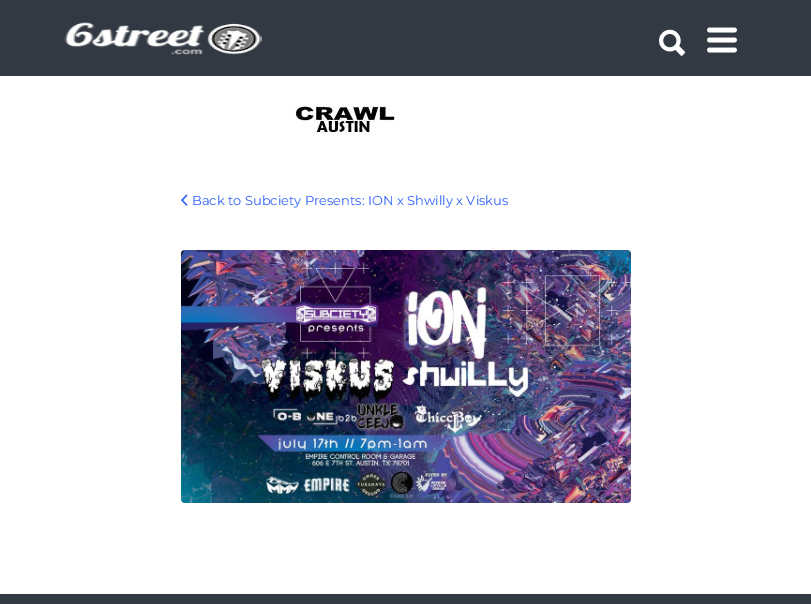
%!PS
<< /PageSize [811 604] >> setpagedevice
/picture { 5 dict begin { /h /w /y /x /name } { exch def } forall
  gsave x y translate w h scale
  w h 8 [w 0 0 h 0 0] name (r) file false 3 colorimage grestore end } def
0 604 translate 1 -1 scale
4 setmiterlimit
1 setgray
0 0 811 604 rectfill
0.2 0.224 0.263 setrgbcolor
0 0 811 76 rectfill
(img1.rgb) 63 22 199 33 picture
(img2.rgb) 659 29 27 27 picture
(img3.rgb) 707 27 30 26 picture
(img4.rgb) 295 106 100 30 picture
(img5.rgb) 181 194 7 12 picture
/Montserrat-Regular [13 0 0 -13 0 0] selectfont
0.188 0.38 1 setrgbcolor
192 205 moveto (Back to Subciety Presents: ION x Shwilly x Viskus) show
(img6.rgb) 181 250 450 253 picture
0.2 0.224 0.259 setrgbcolor
0 594 811 10 rectfill
showpage
